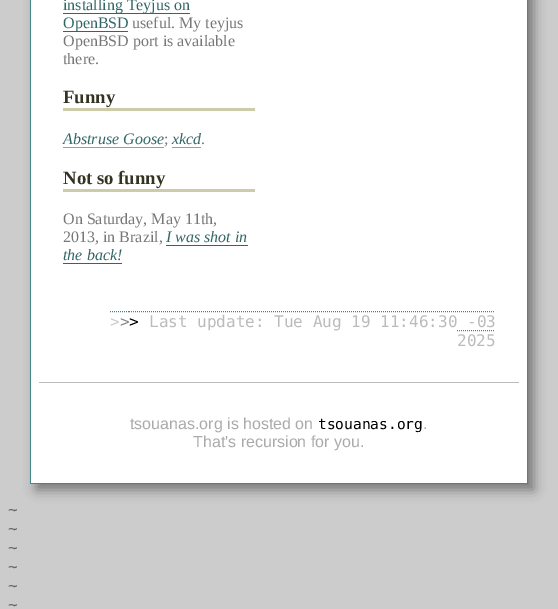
%!PS
<< /PageSize [558 609] /PageUsesTransparency true >> setpagedevice
/alpha { dup .setfillconstantalpha .setstrokeconstantalpha } def
/roundrect { 5 dict begin { /r /h /w /y /x } { exch def } forall
  x r add y moveto x w add y 2 copy h add r arct x w add y h add x 1 index r arct
  x y h add x y r arct x y 2 copy exch w add exch r arct closepath end } def
/shadow { 12 dict begin { /a /b /q /h /w /y /x } { exch def } forall gsave /was 0 def
  9 -2 -9 { dup b mul 4 div /e exch def 1 sub .425 mul 2.718 exch exp 1 add a .99 .min exch div /now exch def
    1 1 now sub 1 was sub div sub alpha /was now def
    w h .min e 2 mul add 0 gt { x e sub y e sub w e 2 mul add h e 2 mul add
      q e add b .6 mul add w h .min 2 div e add .min 0 .max roundrect fill } if } for grestore end } def
0 .pushpdf14devicefilter
0 609 translate 1 -1 scale
4 setmiterlimit
0.8 setgray
0 0 558 609 rectfill
0.467 setgray
36 -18 498 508 0 6 1 shadow
1 setgray
31 0 496 483 rectfill
0.267 0.533 0.533 setrgbcolor
527 0 1 484 rectfill
30 483 498 1 rectfill
30 0 1 484 rectfill
0.2 0.4 0.4 setrgbcolor
63 13 127 1 rectfill
/LiberationSerif-Regular [16 0 0 -16 0 0] selectfont
63 10 moveto (installing Teyjus on) show
63 31 65 1 rectfill
63 28 moveto (OpenBSD) show
0.467 setgray
132 28 moveto (useful. My teyjus) show
63 46 moveto (OpenBSD port is available) show
63 64 moveto (there.) show
0.8 0.8 0.667 setrgbcolor
63 108 192 3 rectfill
/LiberationSerif-Bold [18.75 0 0 -18.75 0 0] selectfont
0.2 0.2 0.133 setrgbcolor
63 103 moveto (Funny) show
/LiberationSerif-Italic [16 0 0 -16 0 0] selectfont
0.2 0.4 0.4 setrgbcolor
63 144 moveto (Abstruse Goose) show
1 0.533 0 setrgbcolor
63 147 101 1 rectfill
/LiberationSerif-Regular [16 0 0 -16 0 0] selectfont
0.467 setgray
164 144 moveto (;) show
/LiberationSerif-Italic [16 0 0 -16 0 0] selectfont
0.2 0.4 0.4 setrgbcolor
172 144 moveto (xkcd) show
1 0.533 0 setrgbcolor
172 147 29 1 rectfill
/LiberationSerif-Regular [16 0 0 -16 0 0] selectfont
0.467 setgray
201 144 moveto (.) show
0.8 0.8 0.667 setrgbcolor
63 189 192 3 rectfill
/LiberationSerif-Bold [18.75 0 0 -18.75 0 0] selectfont
0.2 0.2 0.133 setrgbcolor
63 184 moveto (Not so funny) show
/LiberationSerif-Regular [16 0 0 -16 0 0] selectfont
0.467 setgray
63 224 moveto (On Saturday, May 11th,) show
63 242 moveto (2013, in Brazil,) show
/LiberationSerif-Italic [16 0 0 -16 0 0] selectfont
0.2 0.4 0.4 setrgbcolor
166 242 moveto (I was shot in) show
166 245 82 1 rectfill
63 260 moveto (the back!) show
63 263 59 1 rectfill
/DejaVuSansMono-Regular [16 0 0 -16 0 0] selectfont
0.8 setgray
110 327 moveto (>) show
0.267 0.533 0.533 setrgbcolor
[1 1] 0 setdash
newpath 110 311.5 moveto 120 311.5 lineto 120 311.5 moveto 129 311.5 lineto 129 311.5 moveto 139 311.5 lineto stroke
0.533 setgray
120 327 moveto (>) show
0 setgray
129 327 moveto (>) show
0.267 0.533 0.533 setrgbcolor
newpath 139 311.5 moveto 495 311.5 lineto stroke
newpath 457 330.5 moveto 495 330.5 lineto stroke
0.733 setgray
149 327 moveto (Last update: Tue Aug 19 11:46:30 -03) show
457 346 moveto (2025) show
39 382 480 1 rectfill
/LiberationSans-Regular [16 0 0 -16 0 0] selectfont
0.667 setgray
130 429 moveto (tsouanas.org is hosted on) show
/DejaVuSansMono-Regular [14.5 0 0 -14.5 0 0] selectfont
0 setgray
318 429 moveto (tsouanas.org) show
/LiberationSans-Regular [16 0 0 -16 0 0] selectfont
0.667 setgray
423 429 moveto (.) show
193 447 moveto (That's recursion for you.) show
/DejaVuSansMono-Regular [16 0 0 -16 0 0] selectfont
0.4 setgray
8 515 moveto (~) show
8 534 moveto (~) show
8 553 moveto (~) show
8 572 moveto (~) show
8 591 moveto (~) show
8 610 moveto (~) show
.poppdf14devicefilter showpage
